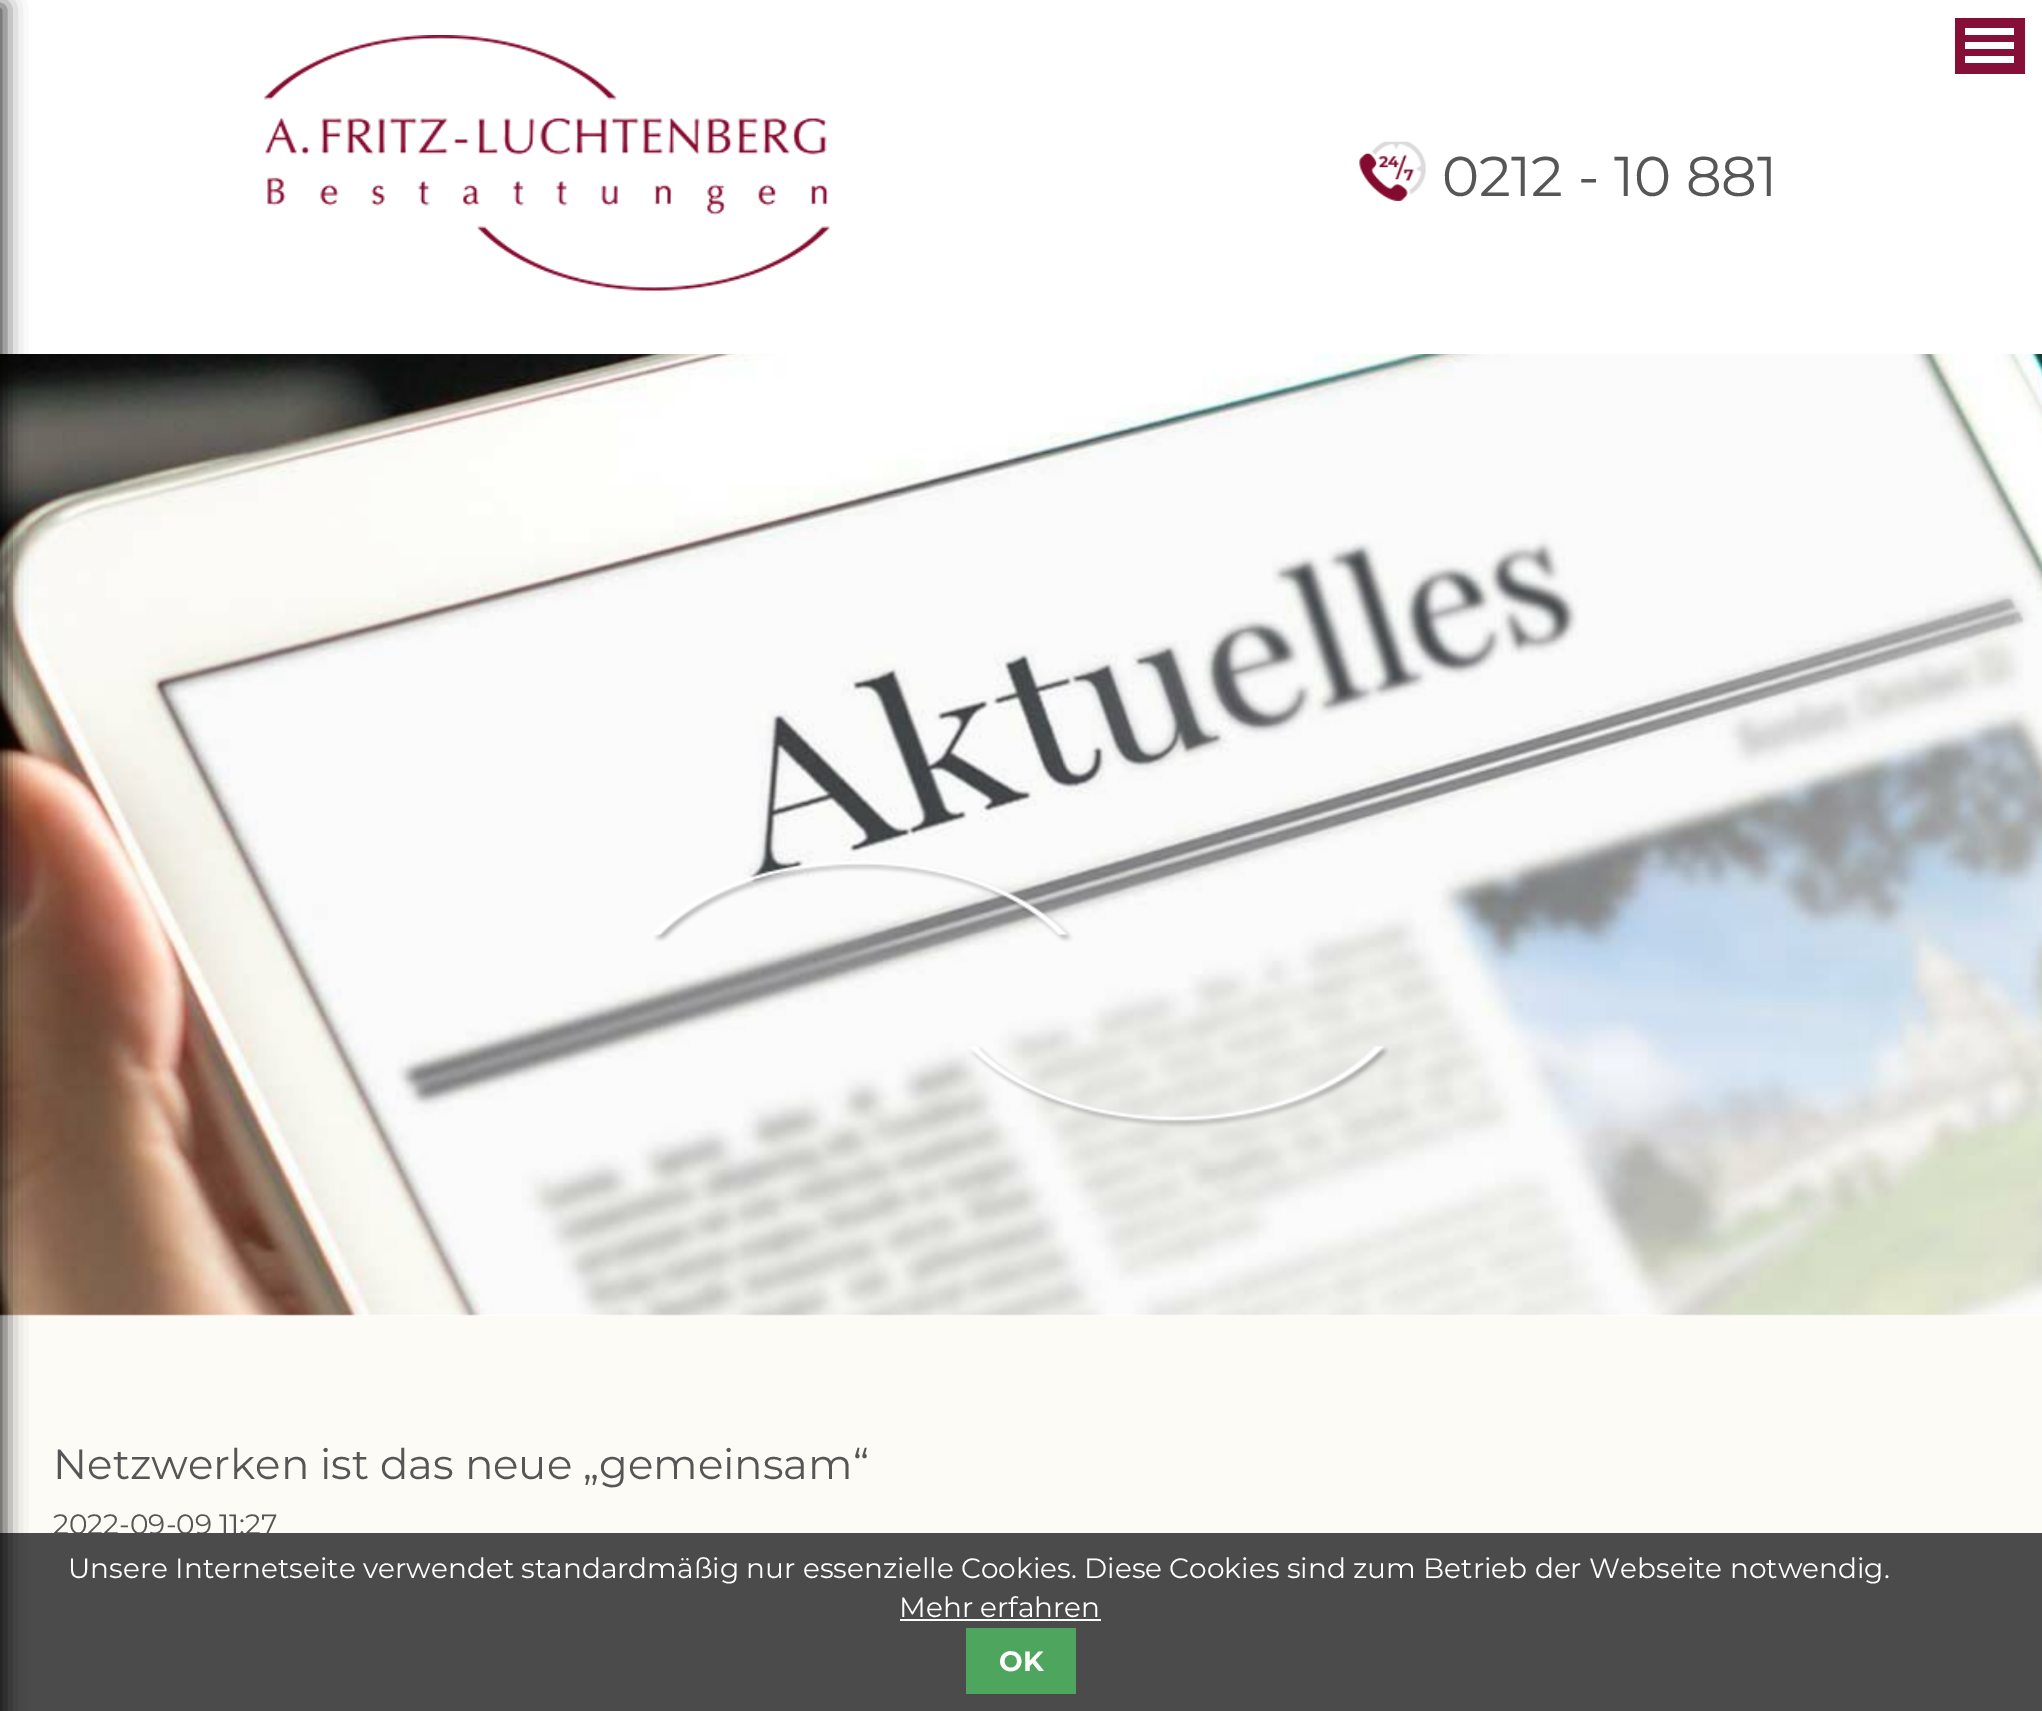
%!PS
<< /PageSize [2042 1711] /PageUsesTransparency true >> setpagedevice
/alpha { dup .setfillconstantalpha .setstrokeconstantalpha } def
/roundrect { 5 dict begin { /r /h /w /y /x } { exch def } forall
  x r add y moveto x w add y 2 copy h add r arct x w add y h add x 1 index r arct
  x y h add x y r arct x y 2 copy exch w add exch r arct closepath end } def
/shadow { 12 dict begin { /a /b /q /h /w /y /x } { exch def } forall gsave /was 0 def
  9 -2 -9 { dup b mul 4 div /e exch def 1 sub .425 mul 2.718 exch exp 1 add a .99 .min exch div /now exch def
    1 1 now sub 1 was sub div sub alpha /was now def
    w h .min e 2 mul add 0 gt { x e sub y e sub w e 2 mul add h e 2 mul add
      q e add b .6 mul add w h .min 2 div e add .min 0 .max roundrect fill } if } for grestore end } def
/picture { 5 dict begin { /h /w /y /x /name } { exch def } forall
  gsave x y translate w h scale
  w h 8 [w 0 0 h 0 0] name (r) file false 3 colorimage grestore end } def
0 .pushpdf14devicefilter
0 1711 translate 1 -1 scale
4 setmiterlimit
0.992 0.984 0.961 setrgbcolor
0 0 2042 1711 rectfill
1 setgray
0 1314 2042 2 rectfill
0 0 2042 354 rectfill
(img4.rgb) 0 354 2042 962 picture
/Montserrat-Regular [28 0 0 -28 0 0] selectfont
0.337 setgray
53 1534 moveto (2022-09-09 11:27) show
0.294 setgray
0 1533 2042 178 rectfill
0 setgray
-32 5 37 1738 0 10.5 0.75 shadow
0.525 0.059 0.216 setrgbcolor
1955 18 70 56 rectfill
1 setgray
1965 42 49 7 rectfill
1965 28 49 7 rectfill
1965 56 49 7 rectfill
(img1.rgb) 264 35 566 256 picture
(img2.rgb) 1359 141 67 60 picture
/Montserrat-Regular [56 0 0 -56 0 0] selectfont
0.337 setgray
1442 196 moveto (0212 - 10 881) show
(img3.rgb) 653 861 736 266 picture
/Montserrat-Regular [42 0 0 -42 0 0] selectfont
53 1479 moveto (Netzwerken ist das neue „gemeinsam“) show
/Montserrat-Regular [28 0 0 -28 0 0] selectfont
1 setgray
68 1578 moveto (Unsere Internetseite verwendet standardmäßig nur essenzielle Cookies. Diese Cookies sind zum Betrieb der Webseite notwendig.) show
899 1617 moveto (Mehr erfahren) show
900 1619 201 2 rectfill
0.306 0.647 0.369 setrgbcolor
966 1628 110 66 rectfill
/Montserrat-Bold [28 0 0 -28 0 0] selectfont
1 setgray
999 1671 moveto (OK) show
.poppdf14devicefilter showpage
